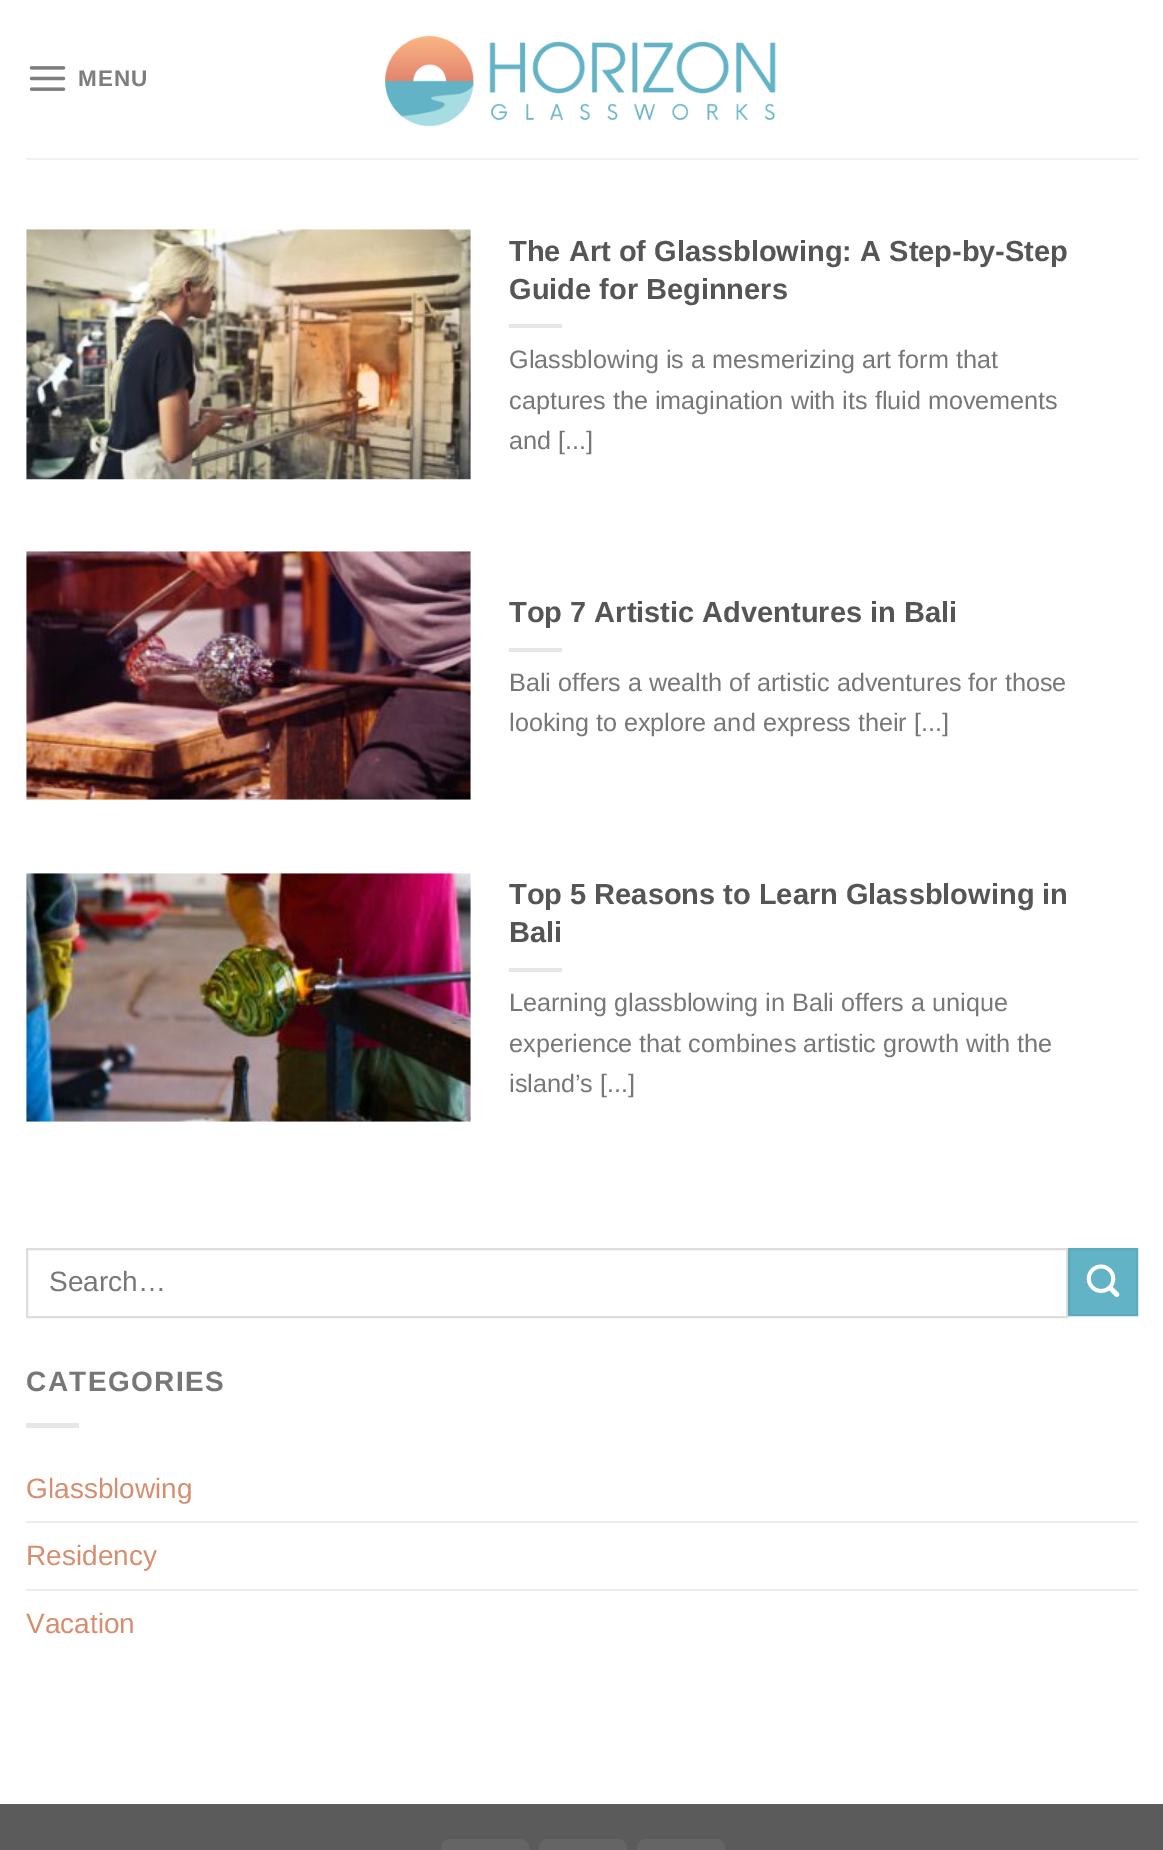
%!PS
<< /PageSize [1163 1850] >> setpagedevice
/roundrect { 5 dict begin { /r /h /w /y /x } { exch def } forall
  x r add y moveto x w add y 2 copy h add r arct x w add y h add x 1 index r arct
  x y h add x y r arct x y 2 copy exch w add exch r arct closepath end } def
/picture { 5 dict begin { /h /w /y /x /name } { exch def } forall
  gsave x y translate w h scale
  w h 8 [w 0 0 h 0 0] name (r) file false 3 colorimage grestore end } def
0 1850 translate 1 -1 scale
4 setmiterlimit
1 setgray
0 0 1163 1850 rectfill
(img1.rgb) 29 66 37 25 picture
/LiberationSans-Bold [22.5 0 0 -22.5 0 0] selectfont
0.49 setgray
78 86 moveto 1 0 (MENU) ashow
(img2.rgb) 385 36 391 91 picture
0.945 setgray
26 158 1112 2 rectfill
(img3.rgb) 26 229 445 251 picture
/LiberationSans-Bold [29 0 0 -29 0 0] selectfont
0.333 setgray
509 261 moveto (The Art of Glassblowing: A Step-by-Step) show
509 299 moveto (Guide for Beginners) show
0.902 setgray
509 324 53 4 rectfill
/LiberationSans-Regular [25.2 0 0 -25.2 0 0] selectfont
0.467 setgray
509 368 moveto (Glassblowing is a mesmerizing art form that) show
509 409 moveto (captures the imagination with its fluid movements) show
509 449 moveto (and [...]) show
(img4.rgb) 26 551 445 249 picture
/LiberationSans-Bold [29 0 0 -29 0 0] selectfont
0.333 setgray
509 622 moveto (Top 7 Artistic Adventures in Bali) show
0.902 setgray
509 648 53 4 rectfill
/LiberationSans-Regular [25.2 0 0 -25.2 0 0] selectfont
0.467 setgray
509 691 moveto (Bali offers a wealth of artistic adventures for those) show
509 731 moveto (looking to explore and express their [...]) show
(img5.rgb) 26 873 445 249 picture
/LiberationSans-Bold [29 0 0 -29 0 0] selectfont
0.333 setgray
509 904 moveto (Top 5 Reasons to Learn Glassblowing in) show
509 942 moveto (Bali) show
0.902 setgray
509 968 53 4 rectfill
/LiberationSans-Regular [25.2 0 0 -25.2 0 0] selectfont
0.467 setgray
509 1011 moveto (Learning glassblowing in Bali offers a unique) show
509 1052 moveto (experience that combines artistic growth with the) show
509 1092 moveto (island’s [...]) show
0.867 setgray
2 setlinewidth
27 1249 1040 68 rectstroke
/LiberationSans-Regular [28 0 0 -28 0 0] selectfont
0.467 setgray
49 1291 moveto (Search…) show
0.384 0.702 0.773 setrgbcolor
newpath 1069 1249 moveto 1137 1249 lineto 1137 1315 lineto 1069 1315 lineto closepath gsave fill grestore
0.365 0.667 0.733 setrgbcolor
stroke
(img6.rgb) 1086 1264 34 33 picture
/LiberationSans-Bold [28 0 0 -28 0 0] selectfont
0.467 setgray
26 1391 moveto 1.4 0 (CATEGORIES) ashow
0.902 setgray
26 1423 53 5 rectfill
/LiberationSans-Regular [28 0 0 -28 0 0] selectfont
0.843 0.557 0.431 setrgbcolor
26 1498 moveto (Glassblowing) show
0.925 setgray
26 1521 1112 2 rectfill
0.843 0.557 0.431 setrgbcolor
26 1565 moveto (Residency) show
0.925 setgray
26 1589 1112 2 rectfill
0.843 0.557 0.431 setrgbcolor
26 1633 moveto (Vacation) show
0.357 setgray
0 1804 1163 46 rectfill
0.396 setgray
441 1839 88 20 9 roundrect fill
539 1839 88 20 9 roundrect fill
637 1839 88 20 9 roundrect fill
showpage
